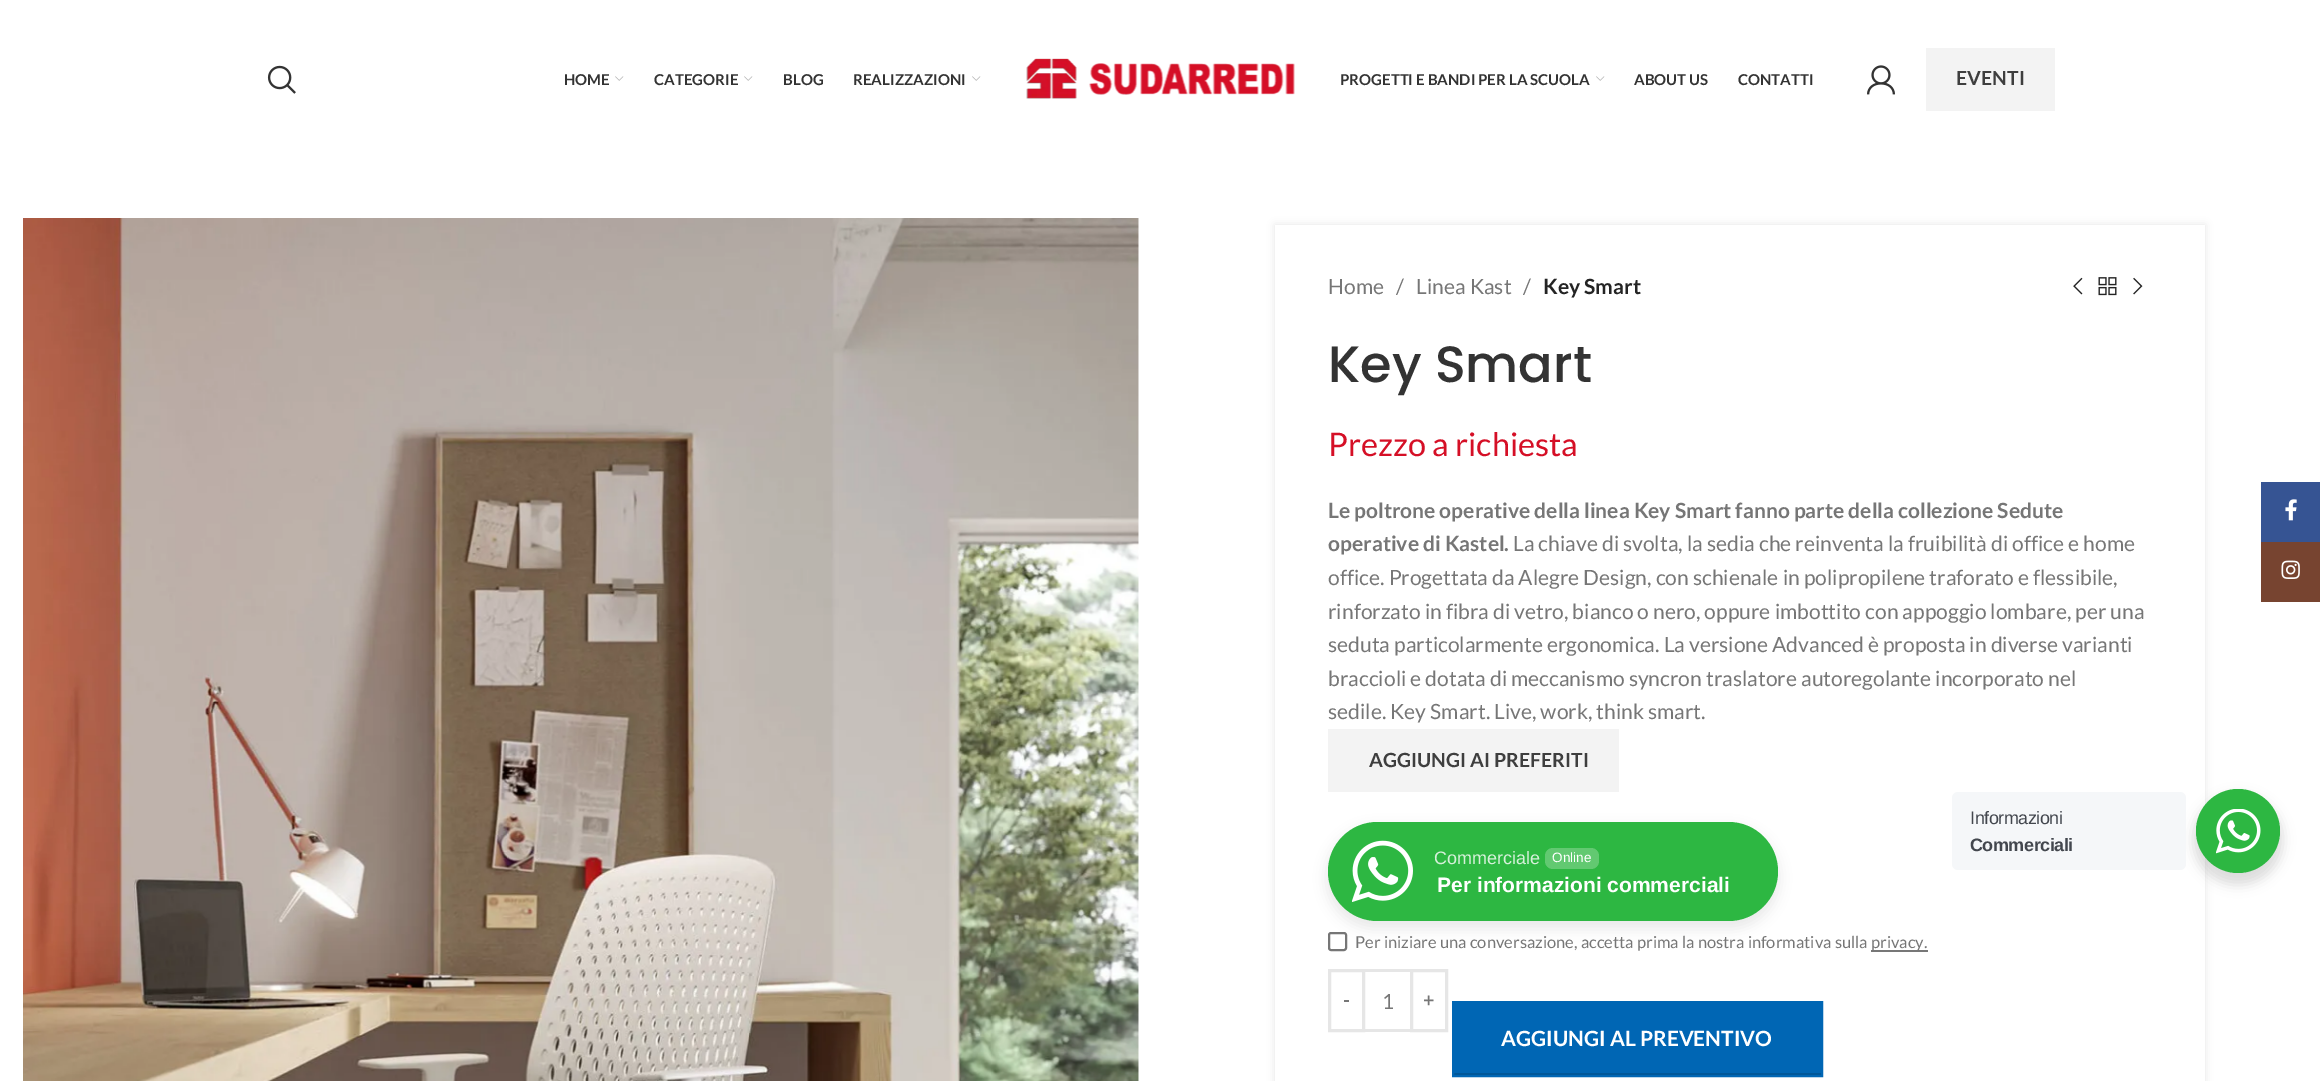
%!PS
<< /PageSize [2320 1081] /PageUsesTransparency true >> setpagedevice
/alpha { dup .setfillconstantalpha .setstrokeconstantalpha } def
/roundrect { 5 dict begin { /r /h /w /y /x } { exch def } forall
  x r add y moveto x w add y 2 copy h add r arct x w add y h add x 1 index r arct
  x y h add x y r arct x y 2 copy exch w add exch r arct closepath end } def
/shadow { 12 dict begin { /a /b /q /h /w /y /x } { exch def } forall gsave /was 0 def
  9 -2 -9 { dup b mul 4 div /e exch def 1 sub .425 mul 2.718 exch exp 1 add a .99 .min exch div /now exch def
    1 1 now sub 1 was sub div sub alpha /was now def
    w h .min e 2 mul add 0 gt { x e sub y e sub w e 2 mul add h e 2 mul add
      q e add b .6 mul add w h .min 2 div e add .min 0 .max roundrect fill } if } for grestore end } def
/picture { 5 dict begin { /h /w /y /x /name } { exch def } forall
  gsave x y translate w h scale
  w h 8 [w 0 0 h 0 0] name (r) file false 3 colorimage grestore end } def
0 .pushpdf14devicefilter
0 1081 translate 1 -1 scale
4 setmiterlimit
1 setgray
0 0 2320 1081 rectfill
(img1.rgb) 267 65 29 29 picture
/Lato-Bold [15 0 0 -15 0 0] selectfont
0.2 setgray
564 85 moveto (HOME) show
(img2.rgb) 615 76 9 5 picture
654 85 moveto (CATEGORIE) show
(img2.rgb) 744 76 9 5 picture
783 85 moveto (BLOG) show
853 85 moveto (REALIZZAZIONI) show
(img2.rgb) 972 76 9 5 picture
(img3.rgb) 1026 58 269 41 picture
1340 85 moveto (PROGETTI E BANDI PER LA SCUOLA) show
(img2.rgb) 1596 76 9 5 picture
1634 85 moveto (ABOUT US) show
1738 85 moveto (CONTATTI) show
(img4.rgb) 1867 65 28 30 picture
0.953 setgray
1926 48 129 63 rectfill
/Lato-Bold [19.5 0 0 -19.5 0 0] selectfont
0.243 setgray
1956 85 moveto (EVENTI) show
(img5.rgb) 23 218 1116 863 picture
gsave
newpath 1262 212 moveto 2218 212 lineto 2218 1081 lineto 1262 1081 lineto closepath 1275 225 moveto 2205 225 lineto 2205 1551 lineto 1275 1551 lineto closepath eoclip newpath
0 setgray
1275 225 930 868 0 4 0.1 shadow
grestore
/Lato-Regular [21 0 0 -21 0 0] selectfont
0.463 setgray
1328 294 moveto (Home) show
1396 294 moveto (/) show
1416 294 moveto (Linea Kast) show
1523 294 moveto (/) show
/Lato-Bold [21 0 0 -21 0 0] selectfont
0.141 setgray
1543 294 moveto (Key Smart) show
(img6.rgb) 2073 277 10 18 picture
(img7.rgb) 2098 277 19 19 picture
(img8.rgb) 2133 277 10 18 picture
/Poppins-Medium [51 0 0 -51 0 0] selectfont
0.2 setgray
1328 382 moveto (Key Smart) show
/Lato-Regular [32.5 0 0 -32.5 0 0] selectfont
0.835 0.059 0.149 setrgbcolor
1328 456 moveto (Prezzo a richiesta) show
/Lato-Bold [21 0 0 -21 0 0] selectfont
0.463 setgray
1328 518 moveto (Le poltrone operative della linea Key Smart fanno parte della collezione Sedute) show
1328 551 moveto (operative di Kastel.) show
/Lato-Regular [21 0 0 -21 0 0] selectfont
1513 551 moveto (La chiave di svolta, la sedia che reinventa la fruibilità di office e home) show
1328 585 moveto (office. Progettata da Alegre Design, con schienale in polipropilene traforato e flessibile,) show
1328 619 moveto (rinforzato in fibra di vetro, bianco o nero, oppure imbottito con appoggio lombare, per una) show
1328 652 moveto (seduta particolarmente ergonomica. La versione Advanced è proposta in diverse varianti) show
1328 686 moveto (braccioli e dotata di meccanismo syncron traslatore autoregolante incorporato nel) show
1328 719 moveto (sedile. Key Smart. Live, work, think smart.) show
0.953 setgray
1328 729 291 63 rectfill
/Lato-Bold [19.5 0 0 -19.5 0 0] selectfont
0.243 setgray
1369 767 moveto (AGGIUNGI AI PREFERITI) show
0.463 setgray
2 setlinewidth
1329 933 17 17 2 roundrect stroke
0.125 0.125 0.145 setrgbcolor
1326 827 453 102 51 6 0.09 shadow
0.176 0.718 0.259 setrgbcolor
1328 822 450 99 49.5 roundrect fill
(img9.rgb) 1352 840 61 62 picture
/LiberationSans-Regular [18 0 0 -18 0 0] selectfont
0.835 0.941 0.851 setrgbcolor
1434 864 moveto (Commerciale) show
0.384 0.788 0.443 setrgbcolor
1545 848 54 21 8 roundrect fill
/LiberationSans-Regular [13.5 0 0 -13.5 0 0] selectfont
1 setgray
1552 862 moveto (Online) show
/LiberationSans-Bold [21 0 0 -21 0 0] selectfont
1437 892 moveto (Per informazioni commerciali) show
/Lato-Regular [16.5 0 0 -16.5 0 0] selectfont
0.463 setgray
1355 948 moveto (Per iniziare una conversazione, accetta prima la nostra informativa sulla) show
0.467 setgray
1871 950 57 2 rectfill
0.463 setgray
1871 948 moveto (privacy.) show
0.902 setgray
3 setlinewidth
1329.5 970.5 34 60 rectstroke
/Lato-Bold [19.5 0 0 -19.5 0 0] selectfont
0.463 setgray
1343 1007 moveto (-) show
0.902 setgray
1365 969 45 3 rectfill
1365 1029 45 3 rectfill
/Lato-Regular [21 0 0 -21 0 0] selectfont
0.463 setgray
1382 1009 moveto (1) show
0.902 setgray
1411.5 970.5 35 60 rectstroke
/Lato-Bold [19.5 0 0 -19.5 0 0] selectfont
0.463 setgray
1423 1007 moveto (+) show
0 0.4 0.706 setrgbcolor
1454 1003 367 70 rectfill
0 0.341 0.6 setrgbcolor
1454 1073 367 2 rectfill
0 0.4 0.706 setrgbcolor
2 setlinewidth
1453 1002 369 74 rectstroke
/Lato-Bold [21 0 0 -21 0 0] selectfont
1 setgray
1501 1046 moveto (AGGIUNGI AL PREVENTIVO) show
0.212 0.329 0.576 setrgbcolor
2261 482 59 60 rectfill
(img10.rgb) 2285 499 12 22 picture
0.467 0.267 0.188 setrgbcolor
2261 542 59 60 rectfill
(img11.rgb) 2281 560 19 19 picture
0 setgray
2193 795 90 90 45 6 0.14 shadow
0.961 0.969 0.976 setrgbcolor
1952 792 234 78 6 roundrect fill
/LiberationSans-Regular [18 0 0 -18 0 0] selectfont
0.263 0.278 0.306 setrgbcolor
1970 824 moveto -0.5 0 (Informazioni) ashow
/LiberationSans-Bold [18 0 0 -18 0 0] selectfont
1970 851 moveto -0.5 0 (Commerciali) ashow
0.176 0.718 0.259 setrgbcolor
newpath 2238 831 42 0 360 arc closepath fill
(img12.rgb) 2216 809 45 45 picture
.poppdf14devicefilter showpage
